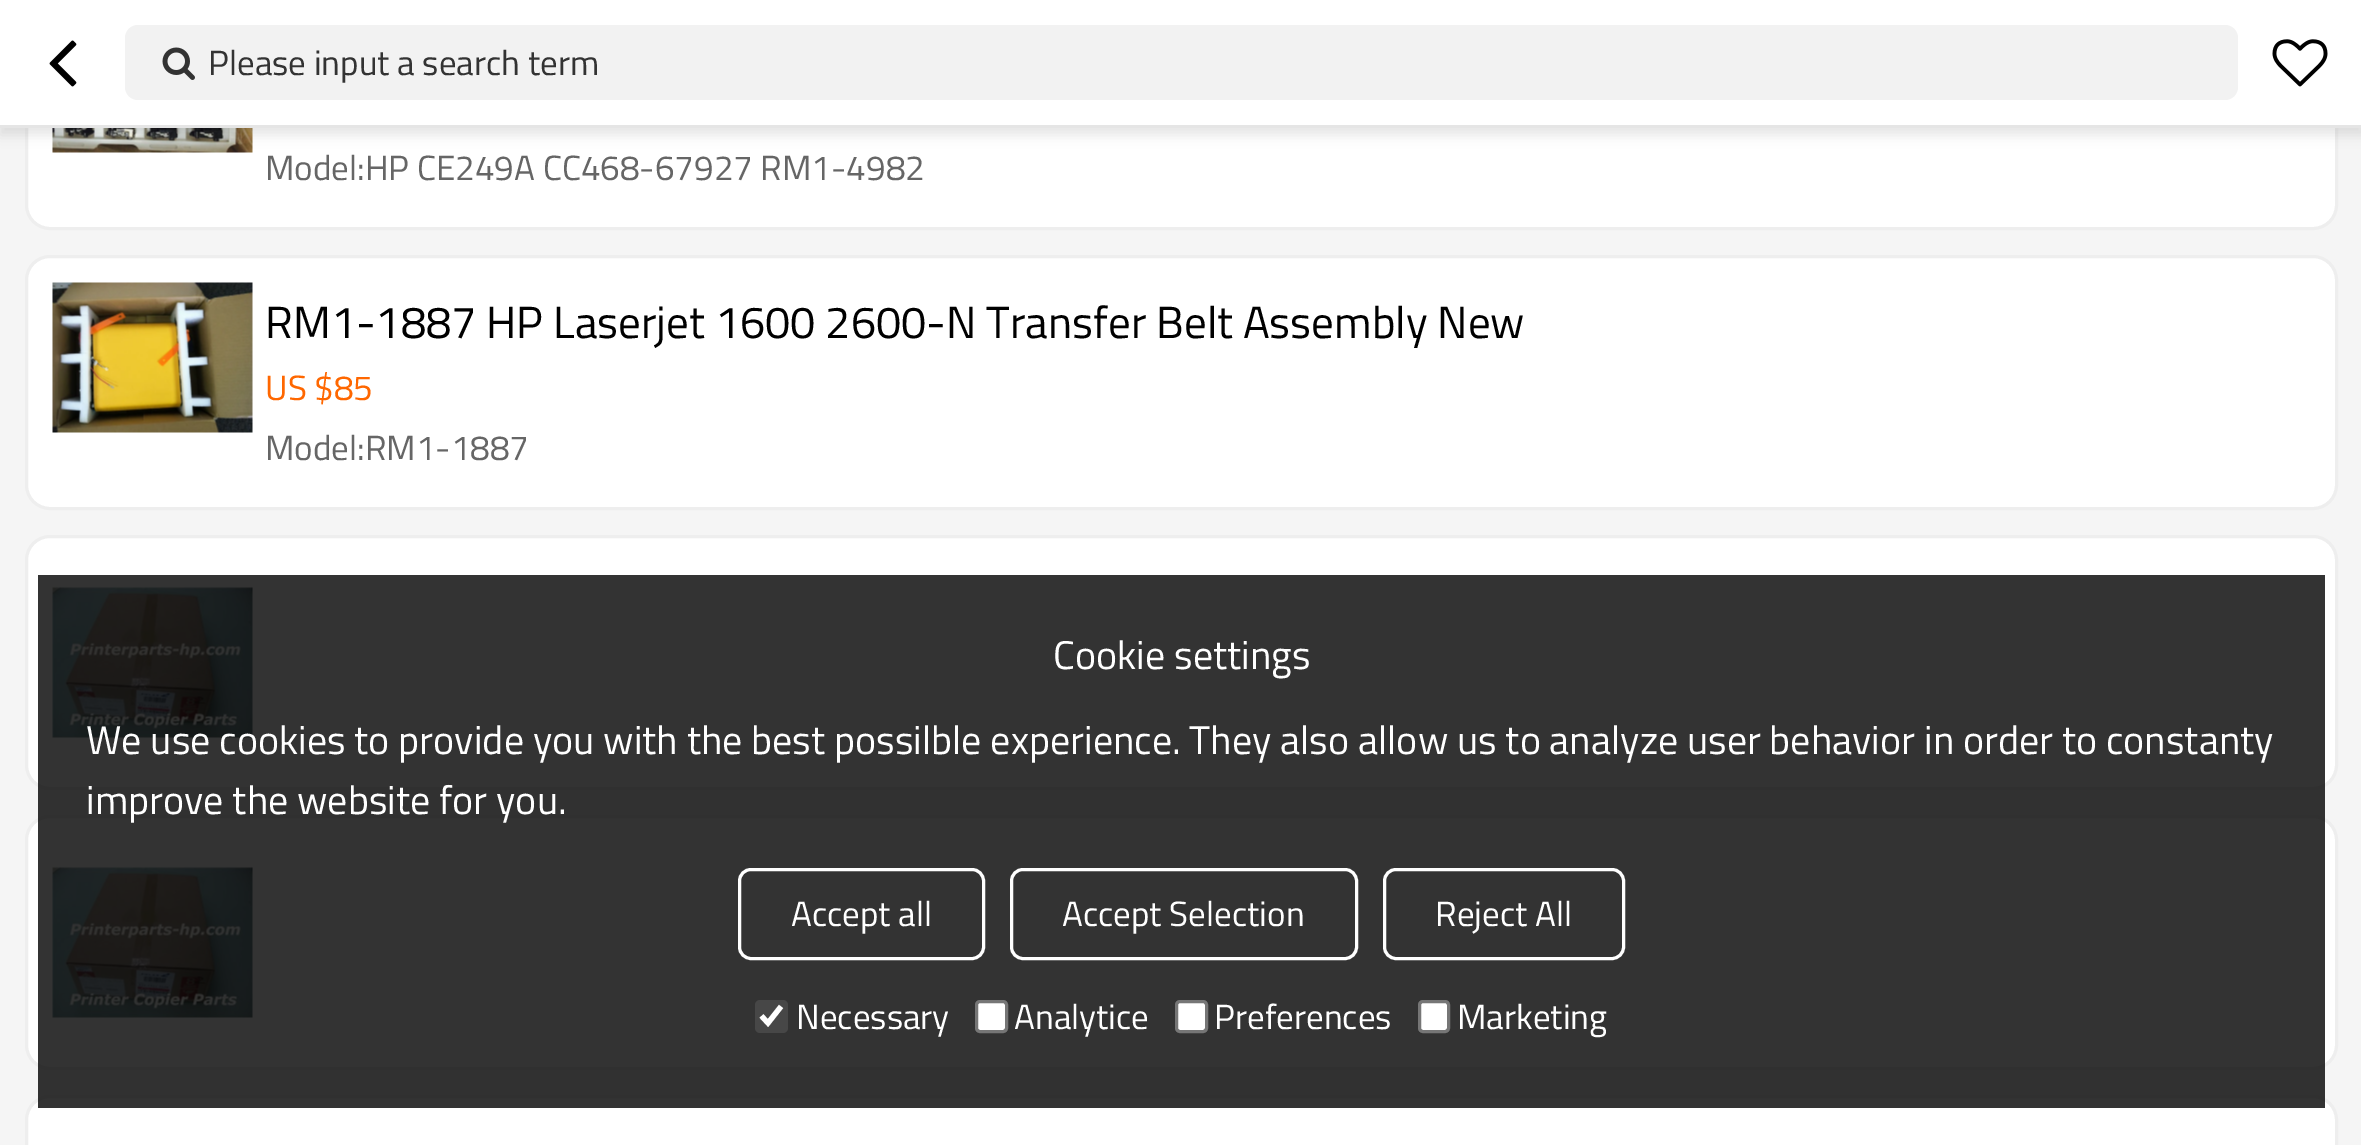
%!PS
<< /PageSize [2361 1145] /PageUsesTransparency true >> setpagedevice
/alpha { dup .setfillconstantalpha .setstrokeconstantalpha } def
/roundrect { 5 dict begin { /r /h /w /y /x } { exch def } forall
  x r add y moveto x w add y 2 copy h add r arct x w add y h add x 1 index r arct
  x y h add x y r arct x y 2 copy exch w add exch r arct closepath end } def
/shadow { 12 dict begin { /a /b /q /h /w /y /x } { exch def } forall gsave /was 0 def
  9 -2 -9 { dup b mul 4 div /e exch def 1 sub .425 mul 2.718 exch exp 1 add a .99 .min exch div /now exch def
    1 1 now sub 1 was sub div sub alpha /was now def
    w h .min e 2 mul add 0 gt { x e sub y e sub w e 2 mul add h e 2 mul add
      q e add b .6 mul add w h .min 2 div e add .min 0 .max roundrect fill } if } for grestore end } def
/picture { 5 dict begin { /h /w /y /x /name } { exch def } forall
  gsave x y translate w h scale
  w h 8 [w 0 0 h 0 0] name (r) file false 3 colorimage grestore end } def
0 .pushpdf14devicefilter
0 1145 translate 1 -1 scale
4 setmiterlimit
0.961 setgray
0 0 2361 1145 rectfill
1 setgray
26.5 -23.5 2310 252 23.5 roundrect gsave fill grestore
0.933 setgray
3 setlinewidth
stroke
(img4.rgb) 52 128 201 25 picture
0 setgray
0 8 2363 127 0 6 0.1 shadow
1 setgray
0 0 2361 125 rectfill
0.898 setgray
0 125 2361 3 rectfill
(img1.rgb) 49 40 28 47 picture
0.949 setgray
125 25 2113 75 13 roundrect fill
(img2.rgb) 162 47 33 33 picture
/TitilliumWeb-Regular [35 0 0 -35 0 0] selectfont
0.2 setgray
208 75 moveto (Please input a search term) show
(img3.rgb) 2272 39 56 48 picture
0.4 setgray
265 180 moveto (Model:HP CE249A CC468-67927 RM1-4982) show
1 setgray
26.5 256.5 2310 252 23.5 roundrect gsave fill grestore
0.933 setgray
stroke
(img5.rgb) 52 282 201 151 picture
/TitilliumWeb-Regular [45 0 0 -45 0 0] selectfont
0 setgray
265 338 moveto (RM1-1887 HP Laserjet 1600 2600-N Transfer Belt Assembly New) show
/TitilliumWeb-Regular [35 0 0 -35 0 0] selectfont
1 0.404 0 setrgbcolor
265 400 moveto (US $85) show
0.4 setgray
265 460 moveto (Model:RM1-1887) show
1 setgray
26.5 536.5 2310 252 23.5 roundrect gsave fill grestore
0.933 setgray
stroke
(img6.rgb) 52 586 201 153 picture
1 setgray
26.5 816.5 2310 252 23.5 roundrect gsave fill grestore
0.933 setgray
stroke
(img6.rgb) 52 866 201 153 picture
1 setgray
26.5 1096.5 2310 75 23.5 roundrect gsave fill grestore
0.933 setgray
stroke
0.8 alpha
0 setgray
38 575 2287 533 rectfill
/TitilliumWeb-Regular [40 0 0 -40 0 0] selectfont
1 alpha
1 setgray
1053 669 moveto (Cookie settings) show
86 754 moveto (We use cookies to provide you with the best possilble experience. They also allow us to analyze user behavior in order to constanty) show
86 814 moveto (improve the website for you.) show
739.5 869.5 244 89 11.5 roundrect stroke
/TitilliumWeb-Regular [35 0 0 -35 0 0] selectfont
791 926 moveto (Accept all) show
1011.5 869.5 345 89 11.5 roundrect stroke
1062 926 moveto (Accept Selection) show
1384.5 869.5 239 89 11.5 roundrect stroke
1435 926 moveto (Reject All) show
0.278 setgray
755 1000 33 33 5 roundrect fill
1 setgray
5.2 setlinewidth
newpath 761.5 1016 moveto 768 1023 lineto 781 1006.5 lineto stroke
796 1029 moveto (Necessary) show
976.5 1001.5 30 30 3.5 roundrect gsave fill grestore
0.463 setgray
3 setlinewidth
stroke
1 setgray
1014 1029 moveto (Analytice) show
1176.5 1001.5 30 30 3.5 roundrect gsave fill grestore
0.463 setgray
stroke
1 setgray
1214 1029 moveto (Preferences) show
1419.5 1001.5 29 30 3.5 roundrect gsave fill grestore
0.463 setgray
stroke
1 setgray
1457 1029 moveto (Marketing) show
.poppdf14devicefilter showpage
